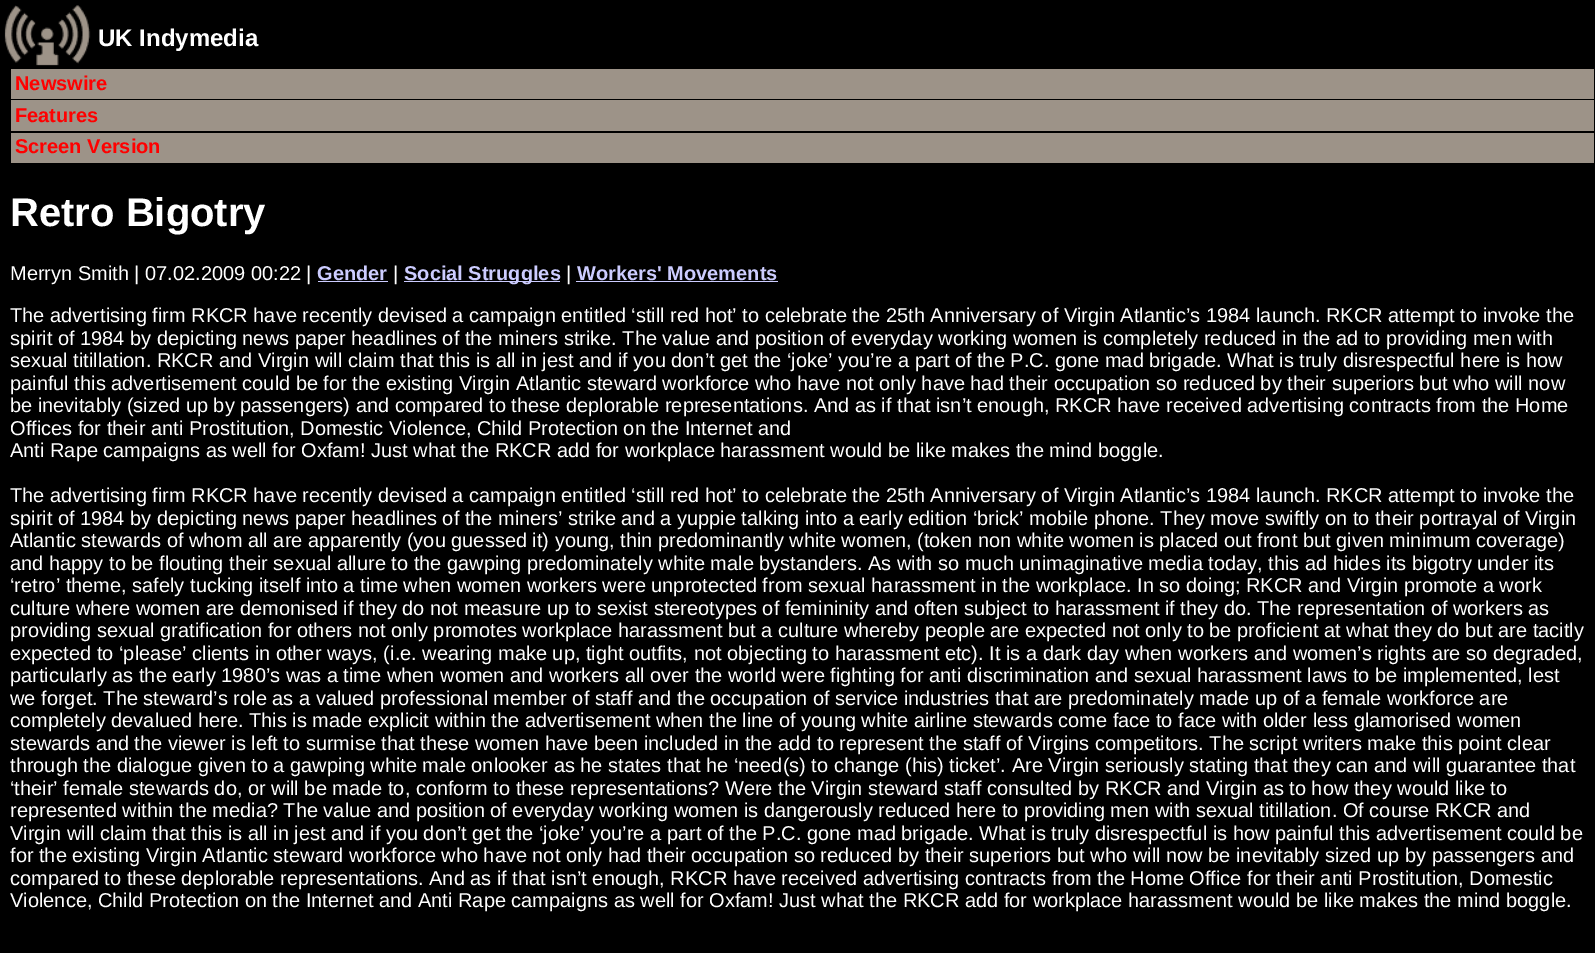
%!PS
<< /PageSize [1595 953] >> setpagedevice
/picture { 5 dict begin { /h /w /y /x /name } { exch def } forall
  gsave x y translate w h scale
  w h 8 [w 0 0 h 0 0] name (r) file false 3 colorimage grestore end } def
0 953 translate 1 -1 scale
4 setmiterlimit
0 setgray
0 0 1595 953 rectfill
(img1.rgb) 4 5 87 61 picture
/LiberationSans-Bold [24 0 0 -24 0 0] selectfont
1 setgray
98 46 moveto (UK Indymedia) show
0.616 0.576 0.533 setrgbcolor
11 69 1583 30 rectfill
/LiberationSans-Bold [20 0 0 -20 0 0] selectfont
1 0 0 setrgbcolor
15 90 moveto (Newswire) show
0.616 0.576 0.533 setrgbcolor
11 100 1583 31 rectfill
1 0 0 setrgbcolor
15 122 moveto (Features) show
0.616 0.576 0.533 setrgbcolor
11 133 1583 30 rectfill
1 0 0 setrgbcolor
15 153 moveto (Screen Version) show
/LiberationSans-Bold [40 0 0 -40 0 0] selectfont
1 setgray
10 226 moveto (Retro Bigotry) show
/LiberationSans-Regular [20 0 0 -20 0 0] selectfont
10 280 moveto (Merryn Smith | 07.02.2009 00:22 |) show
/LiberationSans-Bold [20 0 0 -20 0 0] selectfont
0.8 0.8 1 setrgbcolor
317 280 moveto (Gender) show
318 281 70 1 rectfill
/LiberationSans-Regular [20 0 0 -20 0 0] selectfont
1 setgray
393 280 moveto (|) show
0.8 0.8 1 setrgbcolor
404 281 156 1 rectfill
/LiberationSans-Bold [20 0 0 -20 0 0] selectfont
404 280 moveto (Social Struggles) show
/LiberationSans-Regular [20 0 0 -20 0 0] selectfont
1 setgray
566 280 moveto (|) show
/LiberationSans-Bold [20 0 0 -20 0 0] selectfont
0.8 0.8 1 setrgbcolor
577 280 moveto (Workers' Movements) show
576 281 202 1 rectfill
/LiberationSans-Regular [20 0 0 -20 0 0] selectfont
1 setgray
10 322 moveto (The advertising firm RKCR have recently devised a campaign entitled ‘still red hot’ to celebrate the 25th Anniversary of Virgin Atlantic’s 1984 launch. RKCR attempt to invoke the) show
10 345 moveto (spirit of 1984 by depicting news paper headlines of the miners strike. The value and position of everyday working women is completely reduced in the ad to providing men with) show
10 367 moveto (sexual titillation. RKCR and Virgin will claim that this is all in jest and if you don’t get the ‘joke’ you’re a part of the P.C. gone mad brigade. What is truly disrespectful here is how) show
10 390 moveto (painful this advertisement could be for the existing Virgin Atlantic steward workforce who have not only have had their occupation so reduced by their superiors but who will now) show
10 412 moveto (be inevitably \(sized up by passengers\) and compared to these deplorable representations. And as if that isn’t enough, RKCR have received advertising contracts from the Home) show
10 435 moveto (Offices for their anti Prostitution, Domestic Violence, Child Protection on the Internet and) show
10 457 moveto (Anti Rape campaigns as well for Oxfam! Just what the RKCR add for workplace harassment would be like makes the mind boggle.) show
10 502 moveto (The advertising firm RKCR have recently devised a campaign entitled ‘still red hot’ to celebrate the 25th Anniversary of Virgin Atlantic’s 1984 launch. RKCR attempt to invoke the) show
10 525 moveto (spirit of 1984 by depicting news paper headlines of the miners’ strike and a yuppie talking into a early edition ‘brick’ mobile phone. They move swiftly on to their portrayal of Virgin) show
10 547 moveto (Atlantic stewards of whom all are apparently \(you guessed it\) young, thin predominantly white women, \(token non white women is placed out front but given minimum coverage\)) show
10 570 moveto (and happy to be flouting their sexual allure to the gawping predominately white male bystanders. As with so much unimaginative media today, this ad hides its bigotry under its) show
10 592 moveto (‘retro’ theme, safely tucking itself into a time when women workers were unprotected from sexual harassment in the workplace. In so doing; RKCR and Virgin promote a work) show
10 615 moveto (culture where women are demonised if they do not measure up to sexist stereotypes of femininity and often subject to harassment if they do. The representation of workers as) show
10 637 moveto (providing sexual gratification for others not only promotes workplace harassment but a culture whereby people are expected not only to be proficient at what they do but are tacitly) show
10 660 moveto (expected to ‘please’ clients in other ways, \(i.e. wearing make up, tight outfits, not objecting to harassment etc\). It is a dark day when workers and women’s rights are so degraded,) show
10 682 moveto (particularly as the early 1980’s was a time when women and workers all over the world were fighting for anti discrimination and sexual harassment laws to be implemented, lest) show
10 705 moveto (we forget. The steward’s role as a valued professional member of staff and the occupation of service industries that are predominately made up of a female workforce are) show
10 727 moveto (completely devalued here. This is made explicit within the advertisement when the line of young white airline stewards come face to face with older less glamorised women) show
10 750 moveto (stewards and the viewer is left to surmise that these women have been included in the add to represent the staff of Virgins competitors. The script writers make this point clear) show
10 772 moveto (through the dialogue given to a gawping white male onlooker as he states that he ‘need\(s\) to change \(his\) ticket’. Are Virgin seriously stating that they can and will guarantee that) show
10 795 moveto (‘their’ female stewards do, or will be made to, conform to these representations? Were the Virgin steward staff consulted by RKCR and Virgin as to how they would like to) show
10 817 moveto (represented within the media? The value and position of everyday working women is dangerously reduced here to providing men with sexual titillation. Of course RKCR and) show
10 840 moveto (Virgin will claim that this is all in jest and if you don’t get the ‘joke’ you’re a part of the P.C. gone mad brigade. What is truly disrespectful is how painful this advertisement could be) show
10 862 moveto (for the existing Virgin Atlantic steward workforce who have not only had their occupation so reduced by their superiors but who will now be inevitably sized up by passengers and) show
10 885 moveto (compared to these deplorable representations. And as if that isn’t enough, RKCR have received advertising contracts from the Home Office for their anti Prostitution, Domestic) show
10 907 moveto (Violence, Child Protection on the Internet and Anti Rape campaigns as well for Oxfam! Just what the RKCR add for workplace harassment would be like makes the mind boggle.) show
showpage
